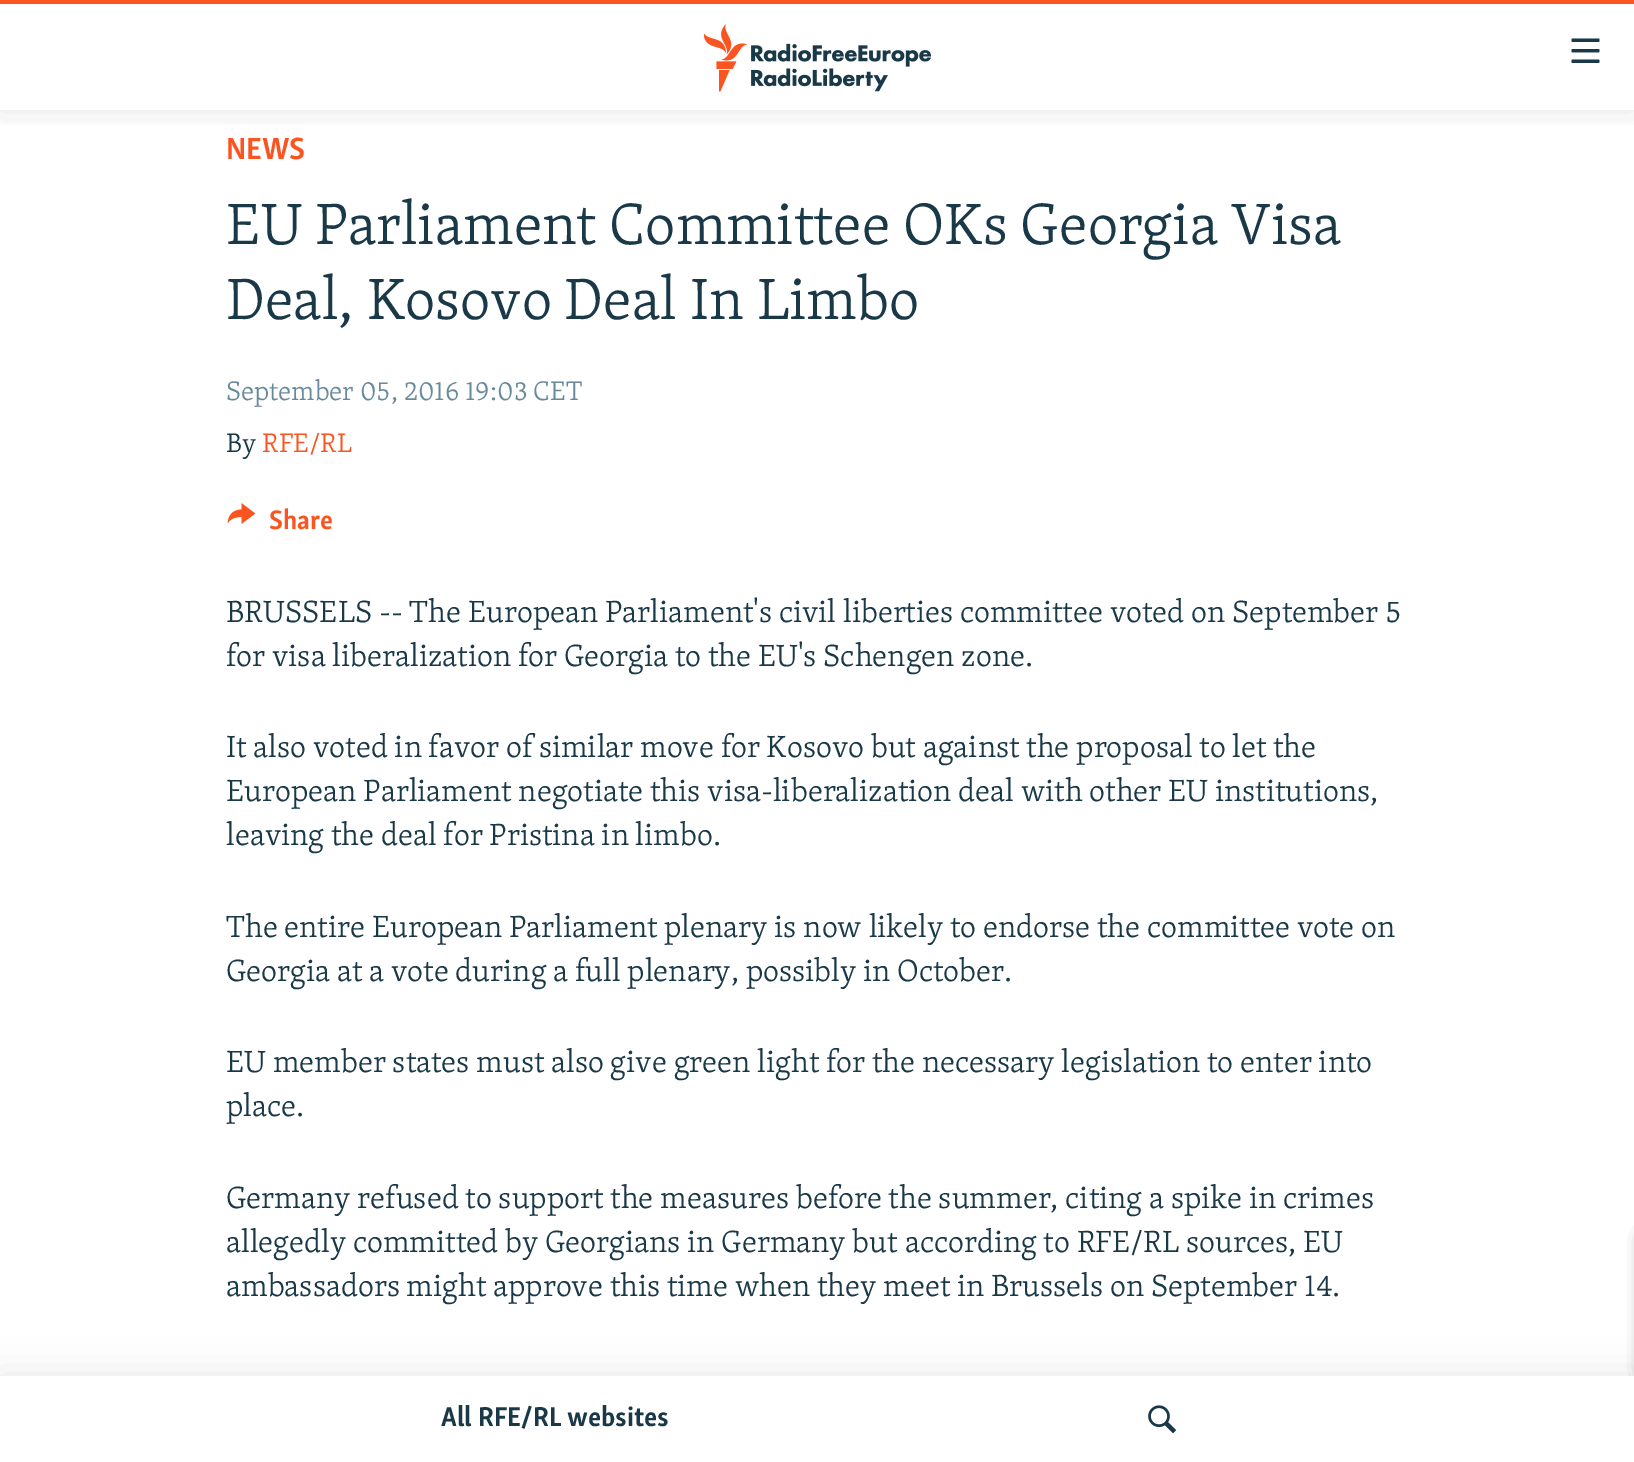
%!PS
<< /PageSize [1634 1462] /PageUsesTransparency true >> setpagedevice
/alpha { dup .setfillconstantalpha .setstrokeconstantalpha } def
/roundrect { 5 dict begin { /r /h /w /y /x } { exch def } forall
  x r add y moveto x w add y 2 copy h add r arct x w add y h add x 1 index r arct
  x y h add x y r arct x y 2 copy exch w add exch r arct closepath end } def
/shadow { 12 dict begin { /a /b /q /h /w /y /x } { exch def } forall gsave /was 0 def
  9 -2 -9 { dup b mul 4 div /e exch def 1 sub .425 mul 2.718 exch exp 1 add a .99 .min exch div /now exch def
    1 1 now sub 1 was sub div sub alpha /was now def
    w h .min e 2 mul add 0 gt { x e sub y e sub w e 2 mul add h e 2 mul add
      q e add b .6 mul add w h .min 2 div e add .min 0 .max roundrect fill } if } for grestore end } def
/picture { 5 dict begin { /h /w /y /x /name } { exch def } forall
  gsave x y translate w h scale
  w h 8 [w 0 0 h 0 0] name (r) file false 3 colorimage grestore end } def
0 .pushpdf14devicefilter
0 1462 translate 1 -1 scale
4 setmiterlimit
1 setgray
0 0 1634 1462 rectfill
/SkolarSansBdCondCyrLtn-Bold [31.5 0 0 -31.5 0 0] selectfont
0.98 0.329 0.125 setrgbcolor
226 159 moveto (NEWS) show
/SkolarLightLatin-Light [59.8 0 0 -59.8 0 0] selectfont
0.102 0.224 0.282 setrgbcolor
226 244 moveto (EU Parliament Committee OKs Georgia Visa) show
226 319 moveto (Deal, Kosovo Deal In Limbo) show
/SkolarLightLatin-Light [27.5 0 0 -27.5 0 0] selectfont
0.404 0.541 0.608 setrgbcolor
226 400 moveto (September 05, 2016 19:03 CET) show
0.102 0.224 0.282 setrgbcolor
226 452 moveto (By) show
0.98 0.329 0.125 setrgbcolor
262 452 moveto (RFE/RL) show
(img1.rgb) 227 503 29 21 picture
/SkolarSansBdCondCyrLtn-Bold [27.5 0 0 -27.5 0 0] selectfont
269 529 moveto (Share) show
/SkolarLightLatin-Light [31.5 0 0 -31.5 0 0] selectfont
0.102 0.224 0.282 setrgbcolor
226 622 moveto (BRUSSELS -- The European Parliament's civil liberties committee voted on September 5) show
226 666 moveto (for visa liberalization for Georgia to the EU's Schengen zone.) show
226 757 moveto (It also voted in favor of similar move for Kosovo but against the proposal to let the) show
226 801 moveto (European Parliament negotiate this visa-liberalization deal with other EU institutions,) show
226 845 moveto (leaving the deal for Pristina in limbo.) show
226 937 moveto (The entire European Parliament plenary is now likely to endorse the committee vote on) show
226 981 moveto (Georgia at a vote during a full plenary, possibly in October.) show
226 1072 moveto (EU member states must also give green light for the necessary legislation to enter into) show
226 1116 moveto (place.) show
226 1208 moveto (Germany refused to support the measures before the summer, citing a spike in crimes) show
226 1252 moveto (allegedly committed by Georgians in Germany but according to RFE/RL sources, EU) show
226 1296 moveto (ambassadors might approve this time when they meet in Brussels on September 14.) show
0 setgray
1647 1234 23 142 9 9 0.85 shadow
gsave
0 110 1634 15 rectclip
0 0 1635 110 0 17.5 0.1 shadow
grestore
0.98 0.329 0.125 setrgbcolor
0 0 1634 4 rectfill
(img2.rgb) 704 24 227 68 picture
(img3.rgb) 1571 38 29 25 picture
0 setgray
0 1376 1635 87 0 17.5 0.1 shadow
1 setgray
0 1376 1634 86 rectfill
/SkolarSansBdCondCyrLtn-Bold [28 0 0 -28 0 0] selectfont
0.102 0.224 0.282 setrgbcolor
441 1426 moveto (All RFE/RL websites) show
(img4.rgb) 1148 1405 28 29 picture
.poppdf14devicefilter showpage
